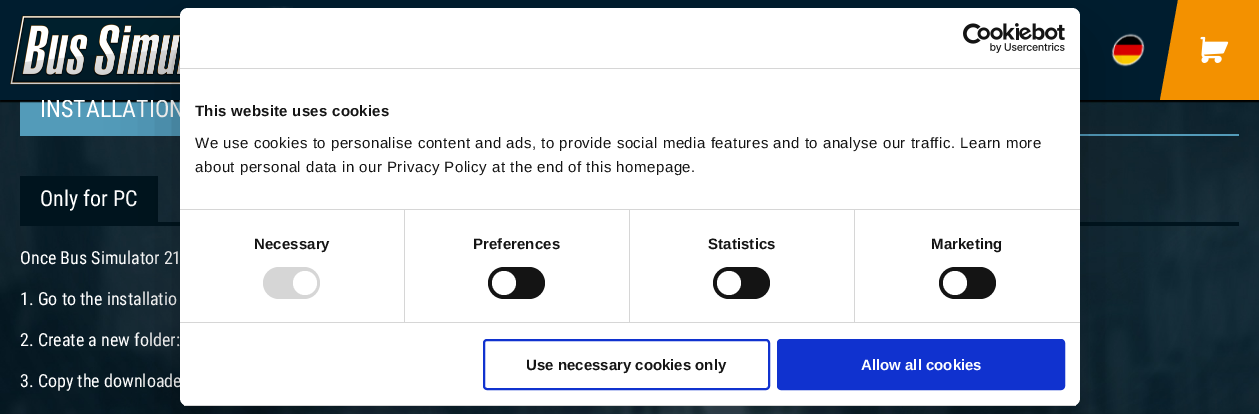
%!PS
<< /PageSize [1259 414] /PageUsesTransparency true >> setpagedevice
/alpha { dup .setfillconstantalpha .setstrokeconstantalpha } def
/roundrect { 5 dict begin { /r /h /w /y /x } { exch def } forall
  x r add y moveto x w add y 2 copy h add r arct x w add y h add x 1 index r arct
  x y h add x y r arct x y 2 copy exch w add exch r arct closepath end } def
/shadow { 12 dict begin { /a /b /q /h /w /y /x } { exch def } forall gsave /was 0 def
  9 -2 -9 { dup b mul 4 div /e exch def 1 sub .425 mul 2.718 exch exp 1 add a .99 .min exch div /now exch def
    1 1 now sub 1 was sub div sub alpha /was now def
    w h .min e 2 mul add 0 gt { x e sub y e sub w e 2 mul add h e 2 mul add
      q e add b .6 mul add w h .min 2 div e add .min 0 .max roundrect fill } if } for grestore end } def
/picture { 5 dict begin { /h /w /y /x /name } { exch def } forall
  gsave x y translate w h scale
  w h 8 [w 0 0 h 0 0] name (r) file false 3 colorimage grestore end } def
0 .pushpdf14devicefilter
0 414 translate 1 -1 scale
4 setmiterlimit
1 setgray
0 0 1259 414 rectfill
(img1.rgb) 0 100 1259 314 picture
0.325 0.608 0.725 setrgbcolor
20 101 160 33 rectfill
0 setgray
0 2 1259 100 0 0.5 1 shadow
/RobotoCondensed-Regular [24 0 0 -24 0 0] selectfont
1 setgray
40 117 moveto (INSTALLATION) show
0 0.114 0.184 setrgbcolor
0 0 1178 100 rectfill
(img2.rgb) 9 6 284 79 picture
(img3.rgb) 1111 33 34 34 picture
0.953 0.569 0 setrgbcolor
newpath 1178 0 moveto 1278 0 lineto 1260 100 lineto 1160 100 lineto closepath fill
(img4.rgb) 1200 36 29 27 picture
0.325 0.608 0.725 setrgbcolor
20 134 1219 2 rectfill
0 0.078 0.118 setrgbcolor
20 222 1219 4 rectfill
20 176 138 46 rectfill
/RobotoCondensed-Regular [22 0 0 -22 0 0] selectfont
1 setgray
40 206 moveto (Only for PC) show
/RobotoCondensed-Regular [18 0 0 -18 0 0] selectfont
20 264 moveto (Once Bus Simulator 21) show
20 305 moveto (1. Go to the installatio) show
20 346 moveto (2. Create a new folder:) show
20 387 moveto (3. Copy the downloade) show
0 setgray
180 40 900 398 8 34 0.3 shadow
1 setgray
180 8 900 398 8 roundrect fill
0.839 setgray
180 68 900 1 rectfill
(img5.rgb) 963 23 102 30 picture
180 209 900 1 rectfill
/LiberationSans-Bold [15 0 0 -15 0 0] selectfont
0.078 setgray
195 116 moveto 0.25 0 (This website uses cookies) ashow
/LiberationSans-Regular [15 0 0 -15 0 0] selectfont
195 148 moveto 0.5 0 (We use cookies to personalise content and ads, to provide social media features and to analyse our traffic. Learn more) ashow
195 172 moveto 0.5 0 (about personal data in our Privacy Policy at the end of this homepage.) ashow
0.839 setgray
180 322 900 1 rectfill
404 210 1 112 rectfill
/LiberationSans-Bold [15 0 0 -15 0 0] selectfont
0.078 setgray
254 249 moveto 0.1 0 (Necessary) ashow
0.839 setgray
263 267 57 32 16 roundrect fill
1 setgray
newpath 305 283 12 0 360 arc closepath fill
0.839 setgray
629 210 1 112 rectfill
0.078 setgray
473 249 moveto 0.1 0 (Preferences) ashow
488 267 57 32 16 roundrect fill
1 setgray
newpath 504 283 12 0 360 arc closepath fill
0.839 setgray
854 210 1 112 rectfill
0.078 setgray
708 249 moveto 0.1 0 (Statistics) ashow
713 267 57 32 16 roundrect fill
1 setgray
newpath 729 283 12 0 360 arc closepath fill
0.078 setgray
931 249 moveto 0.1 0 (Marketing) ashow
939 267 57 32 16 roundrect fill
1 setgray
newpath 955 283 12 0 360 arc closepath fill
gsave
180 8 900 398 8 roundrect clip newpath
0.839 setgray
180 405 900 1 rectfill
grestore
0.063 0.196 0.812 setrgbcolor
2 setlinewidth
484 340 285 49 3 roundrect stroke
0.078 setgray
526 370 moveto (Use necessary cookies only) show
0.063 0.196 0.812 setrgbcolor
778 340 286 49 3 roundrect gsave fill grestore
stroke
1 setgray
861 370 moveto (Allow all cookies) show
.poppdf14devicefilter showpage
